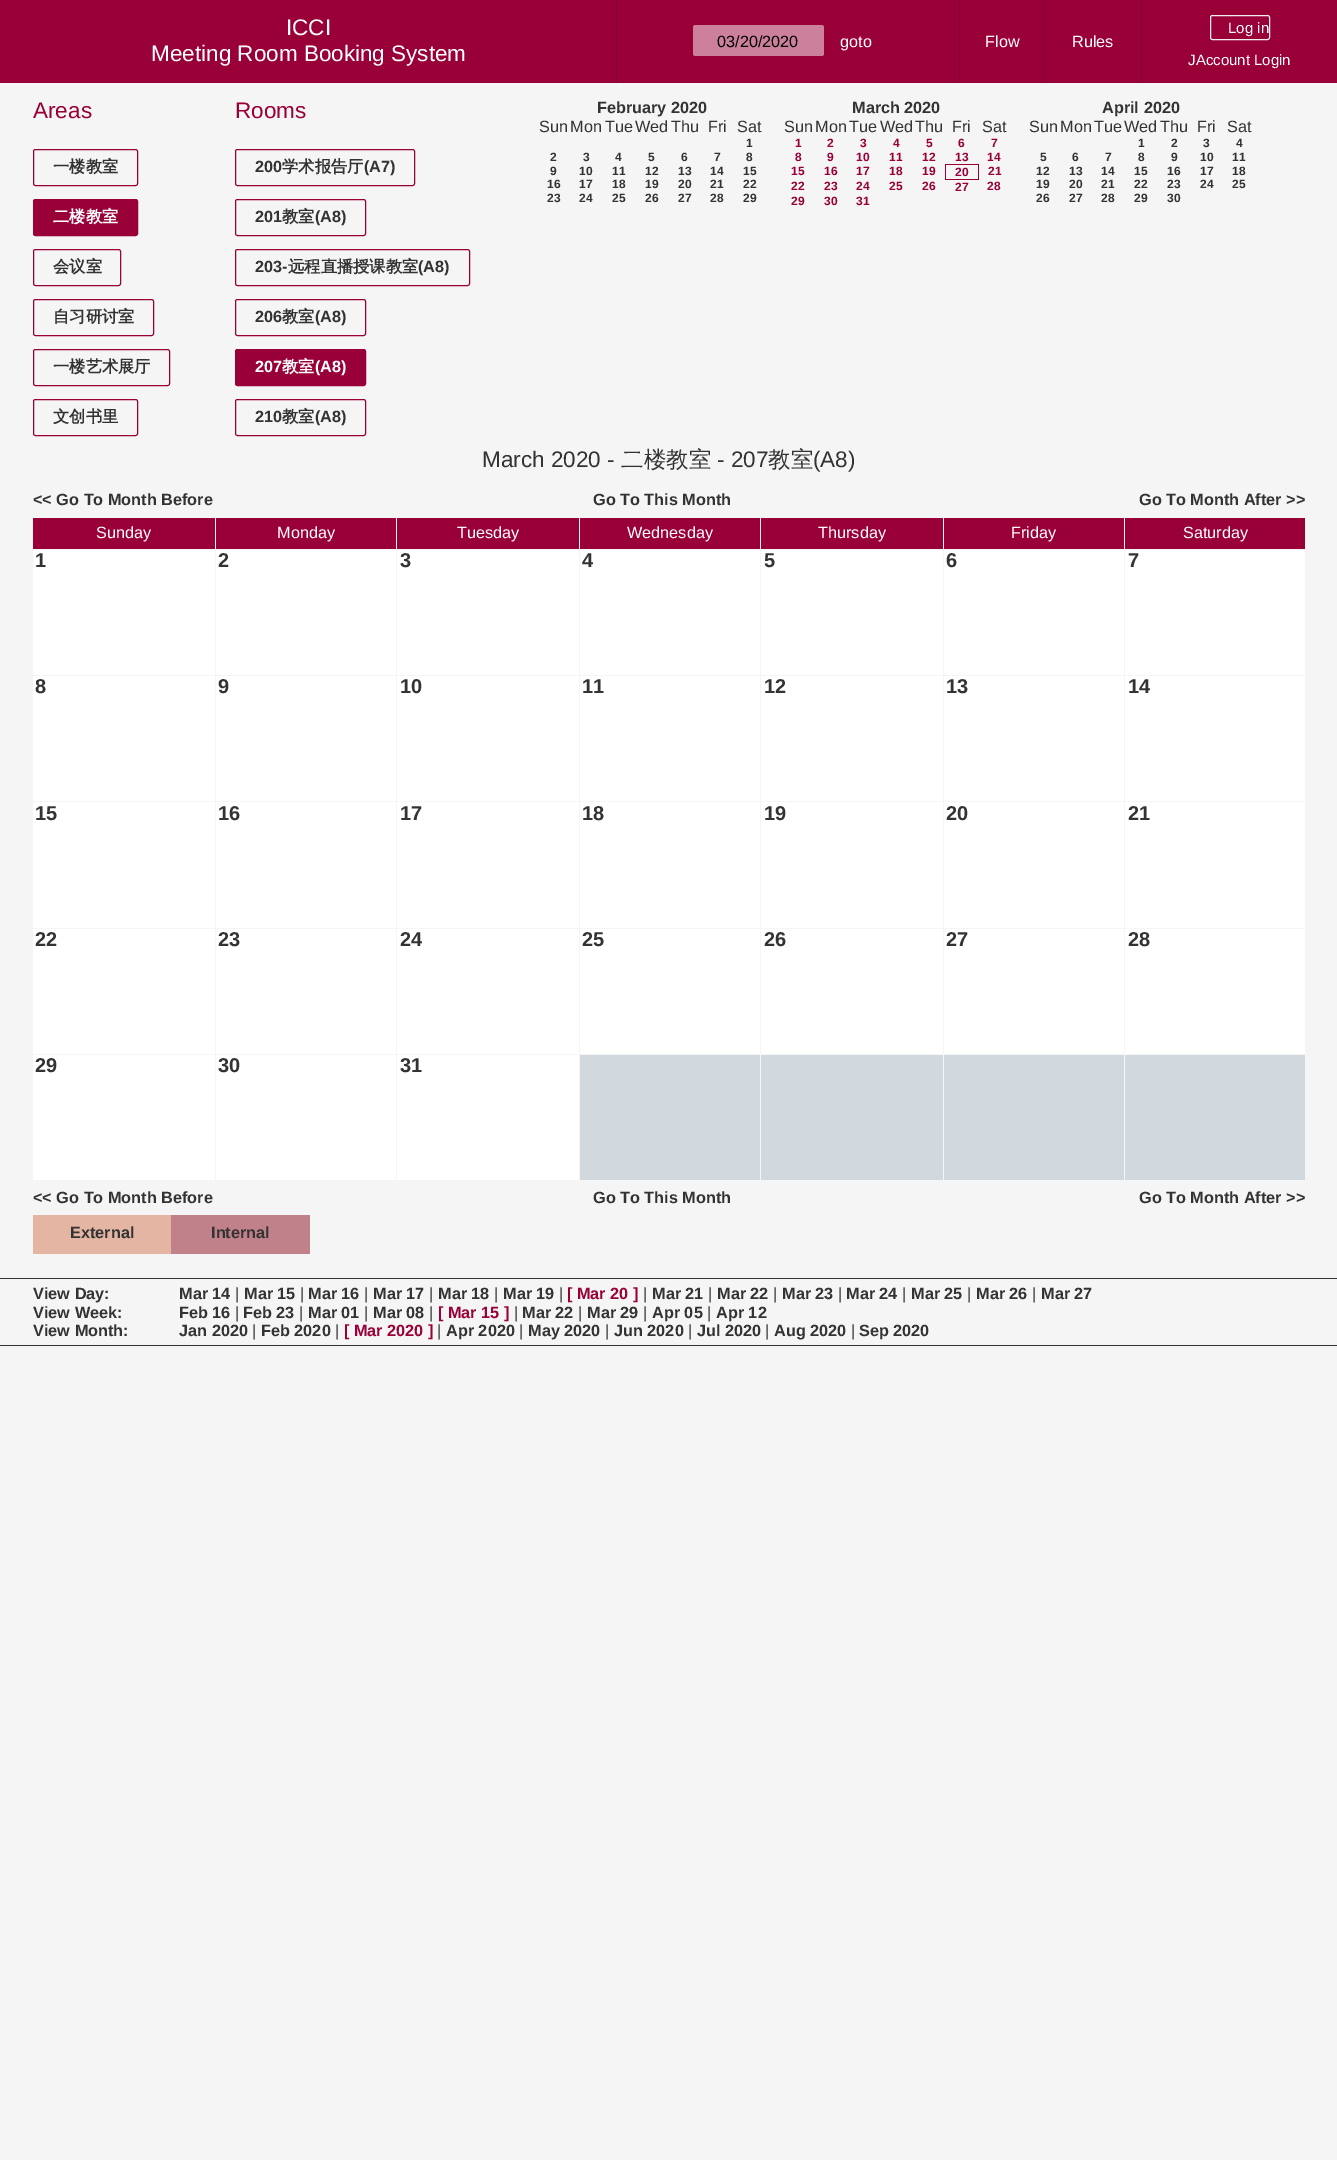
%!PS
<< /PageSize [1337 2160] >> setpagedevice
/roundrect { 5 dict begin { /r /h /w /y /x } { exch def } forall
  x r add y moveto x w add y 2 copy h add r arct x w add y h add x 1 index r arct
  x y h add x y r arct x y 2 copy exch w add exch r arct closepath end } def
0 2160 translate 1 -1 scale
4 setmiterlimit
0.961 setgray
0 0 1337 2160 rectfill
0.604 0 0.22 setrgbcolor
0 0 1337 83 rectfill
/LiberationSans-Regular [22.5 0 0 -22.5 0 0] selectfont
1 setgray
286 35 moveto (ICCI) show
151 61 moveto (Meeting Room Booking System) show
0.494 0.012 0.192 setrgbcolor
616 0 1 83 rectfill
0.804 0.502 0.612 setrgbcolor
693 25 131 31 2.5 roundrect fill
/LiberationSans-Regular [16.25 0 0 -16.25 0 0] selectfont
0 setgray
717 47 moveto (03/20/2020) show
1 setgray
840 47 moveto (goto) show
0.494 0.012 0.192 setrgbcolor
959 0 1 83 rectfill
1 setgray
985 47 moveto (Flow) show
0.494 0.012 0.192 setrgbcolor
1044 0 1 83 rectfill
1 setgray
1072 47 moveto (Rules) show
0.494 0.012 0.192 setrgbcolor
1141 0 1 83 rectfill
0.933 setgray
1210.5 15.5 59 24 2 roundrect stroke
/LiberationSans-Regular [15 0 0 -15 0 0] selectfont
1 setgray
1228 33 moveto (Log in) show
1188 65 moveto (JAccount Login) show
/LiberationSans-Regular [22.5 0 0 -22.5 0 0] selectfont
0.604 0 0.22 setrgbcolor
33 118 moveto (Areas) show
33.5 149.5 104 36 2 roundrect stroke
/WenQuanYiZenHei-Bold [16.25 0 0 -16.25 0 0] selectfont
0.2 setgray
53 172 moveto (一楼教室) show
0.604 0 0.22 setrgbcolor
33.5 199.5 104 36 2 roundrect gsave fill grestore
stroke
1 setgray
53 222 moveto (二楼教室) show
0.604 0 0.22 setrgbcolor
33.5 249.5 87 36 2 roundrect stroke
0.2 setgray
53 272 moveto (会议室) show
0.604 0 0.22 setrgbcolor
33.5 299.5 120 36 2 roundrect stroke
0.2 setgray
53 322 moveto (自习研讨室) show
0.604 0 0.22 setrgbcolor
33.5 349.5 136 36 2 roundrect stroke
0.2 setgray
53 372 moveto (一楼艺术展厅) show
0.604 0 0.22 setrgbcolor
33.5 399.5 104 36 2 roundrect stroke
0.2 setgray
53 422 moveto (文创书里) show
/LiberationSans-Regular [22.5 0 0 -22.5 0 0] selectfont
0.604 0 0.22 setrgbcolor
235 118 moveto (Rooms) show
235.5 149.5 179 36 2 roundrect stroke
/LiberationSans-Bold [16.25 0 0 -16.25 0 0] selectfont
0.2 setgray
255 172 moveto (200) show
/WenQuanYiZenHei-Bold [16.25 0 0 -16.25 0 0] selectfont
282 172 moveto (学术报告厅) show
/LiberationSans-Bold [16.25 0 0 -16.25 0 0] selectfont
364 172 moveto (\(A7\)) show
0.604 0 0.22 setrgbcolor
235.5 199.5 130 36 2 roundrect stroke
0.2 setgray
255 222 moveto (201) show
/WenQuanYiZenHei-Bold [16.25 0 0 -16.25 0 0] selectfont
282 222 moveto (教室) show
/LiberationSans-Bold [16.25 0 0 -16.25 0 0] selectfont
315 222 moveto (\(A8\)) show
0.604 0 0.22 setrgbcolor
235.5 249.5 234 36 2 roundrect stroke
0.2 setgray
255 272 moveto (203-) show
/WenQuanYiZenHei-Bold [16.25 0 0 -16.25 0 0] selectfont
288 272 moveto (远程直播授课教室) show
/LiberationSans-Bold [16.25 0 0 -16.25 0 0] selectfont
418 272 moveto (\(A8\)) show
0.604 0 0.22 setrgbcolor
235.5 299.5 130 36 2 roundrect stroke
0.2 setgray
255 322 moveto (206) show
/WenQuanYiZenHei-Bold [16.25 0 0 -16.25 0 0] selectfont
282 322 moveto (教室) show
/LiberationSans-Bold [16.25 0 0 -16.25 0 0] selectfont
315 322 moveto (\(A8\)) show
0.604 0 0.22 setrgbcolor
235.5 349.5 130 36 2 roundrect gsave fill grestore
stroke
1 setgray
255 372 moveto (207) show
/WenQuanYiZenHei-Bold [16.25 0 0 -16.25 0 0] selectfont
282 372 moveto (教室) show
/LiberationSans-Bold [16.25 0 0 -16.25 0 0] selectfont
315 372 moveto (\(A8\)) show
0.604 0 0.22 setrgbcolor
235.5 399.5 130 36 2 roundrect stroke
0.2 setgray
255 422 moveto (210) show
/WenQuanYiZenHei-Bold [16.25 0 0 -16.25 0 0] selectfont
282 422 moveto (教室) show
/LiberationSans-Bold [16.25 0 0 -16.25 0 0] selectfont
315 422 moveto (\(A8\)) show
597 113 moveto (February 2020) show
/LiberationSans-Regular [16.25 0 0 -16.25 0 0] selectfont
539 132 moveto (Sun) show
570 132 moveto (Mon) show
605 132 moveto (Tue) show
635 132 moveto (Wed) show
671 132 moveto (Thu) show
708 132 moveto (Fri) show
737 132 moveto (Sat) show
/LiberationSans-Bold [12 0 0 -12 0 0] selectfont
746 147 moveto (1) show
550 161 moveto (2) show
583 161 moveto (3) show
615 161 moveto (4) show
648 161 moveto (5) show
681 161 moveto (6) show
714 161 moveto (7) show
746 161 moveto (8) show
550 175 moveto (9) show
579 175 moveto (10) show
612 175 moveto (11) show
645 175 moveto (12) show
678 175 moveto (13) show
710 175 moveto (14) show
743 175 moveto (15) show
547 188 moveto (16) show
579 188 moveto (17) show
612 188 moveto (18) show
645 188 moveto (19) show
678 188 moveto (20) show
710 188 moveto (21) show
743 188 moveto (22) show
547 202 moveto (23) show
579 202 moveto (24) show
612 202 moveto (25) show
645 202 moveto (26) show
678 202 moveto (27) show
710 202 moveto (28) show
743 202 moveto (29) show
/LiberationSans-Bold [16.25 0 0 -16.25 0 0] selectfont
852 113 moveto (March 2020) show
/LiberationSans-Regular [16.25 0 0 -16.25 0 0] selectfont
784 132 moveto (Sun) show
815 132 moveto (Mon) show
849 132 moveto (Tue) show
880 132 moveto (Wed) show
915 132 moveto (Thu) show
952 132 moveto (Fri) show
982 132 moveto (Sat) show
/LiberationSans-Bold [12 0 0 -12 0 0] selectfont
0.604 0 0.22 setrgbcolor
795 147 moveto (1) show
827 147 moveto (2) show
860 147 moveto (3) show
893 147 moveto (4) show
926 147 moveto (5) show
958 147 moveto (6) show
991 147 moveto (7) show
795 161 moveto (8) show
827 161 moveto (9) show
856 161 moveto (10) show
889 161 moveto (11) show
922 161 moveto (12) show
955 161 moveto (13) show
987 161 moveto (14) show
791 175 moveto (15) show
824 175 moveto (16) show
856 175 moveto (17) show
889 175 moveto (18) show
922 175 moveto (19) show
945 164 34 1 rectfill
978 164 1 16 rectfill
945 179 34 1 rectfill
945 164 1 16 rectfill
955 176 moveto (20) show
988 175 moveto (21) show
791 190 moveto (22) show
824 190 moveto (23) show
856 190 moveto (24) show
889 190 moveto (25) show
922 190 moveto (26) show
955 191 moveto (27) show
987 190 moveto (28) show
791 205 moveto (29) show
824 205 moveto (30) show
856 205 moveto (31) show
/LiberationSans-Bold [16.25 0 0 -16.25 0 0] selectfont
0.2 setgray
1102 113 moveto (April 2020) show
/LiberationSans-Regular [16.25 0 0 -16.25 0 0] selectfont
1029 132 moveto (Sun) show
1060 132 moveto (Mon) show
1094 132 moveto (Tue) show
1124 132 moveto (Wed) show
1160 132 moveto (Thu) show
1197 132 moveto (Fri) show
1227 132 moveto (Sat) show
/LiberationSans-Bold [12 0 0 -12 0 0] selectfont
1138 147 moveto (1) show
1171 147 moveto (2) show
1203 147 moveto (3) show
1236 147 moveto (4) show
1040 161 moveto (5) show
1072 161 moveto (6) show
1105 161 moveto (7) show
1138 161 moveto (8) show
1171 161 moveto (9) show
1200 161 moveto (10) show
1232 161 moveto (11) show
1036 175 moveto (12) show
1069 175 moveto (13) show
1101 175 moveto (14) show
1134 175 moveto (15) show
1167 175 moveto (16) show
1200 175 moveto (17) show
1232 175 moveto (18) show
1036 188 moveto (19) show
1069 188 moveto (20) show
1101 188 moveto (21) show
1134 188 moveto (22) show
1167 188 moveto (23) show
1200 188 moveto (24) show
1232 188 moveto (25) show
1036 202 moveto (26) show
1069 202 moveto (27) show
1101 202 moveto (28) show
1134 202 moveto (29) show
1167 202 moveto (30) show
/LiberationSans-Regular [22.5 0 0 -22.5 0 0] selectfont
482 467 moveto (March 2020 -) show
/WenQuanYiZenHei-Medium [22.5 0 0 -22.5 0 0] selectfont
621 467 moveto (二楼教室) show
/LiberationSans-Regular [22.5 0 0 -22.5 0 0] selectfont
717 467 moveto (- 207) show
/WenQuanYiZenHei-Medium [22.5 0 0 -22.5 0 0] selectfont
768 467 moveto (教室) show
/LiberationSans-Regular [22.5 0 0 -22.5 0 0] selectfont
813 467 moveto (\(A8\)) show
/LiberationSans-Bold [16.25 0 0 -16.25 0 0] selectfont
33 505 moveto (<< Go To Month Before) show
593 505 moveto (Go To This Month) show
1139 505 moveto (Go To Month After >>) show
0.604 0 0.22 setrgbcolor
33 518 182 31 rectfill
/LiberationSans-Regular [16.25 0 0 -16.25 0 0] selectfont
1 setgray
96 538 moveto (Sunday) show
0.604 0 0.22 setrgbcolor
216 518 180 31 rectfill
1 setgray
277 538 moveto (Monday) show
0.604 0 0.22 setrgbcolor
397 518 182 31 rectfill
1 setgray
457 538 moveto (Tuesday) show
0.604 0 0.22 setrgbcolor
580 518 180 31 rectfill
1 setgray
627 538 moveto (Wednesday) show
0.604 0 0.22 setrgbcolor
761 518 182 31 rectfill
1 setgray
818 538 moveto (Thursday) show
0.604 0 0.22 setrgbcolor
944 518 180 31 rectfill
1 setgray
1011 538 moveto (Friday) show
0.604 0 0.22 setrgbcolor
1125 518 180 31 rectfill
1 setgray
1183 538 moveto (Saturday) show
33 550 182 125 rectfill
/LiberationSans-Bold [20 0 0 -20 0 0] selectfont
0.2 setgray
35 567 moveto (1) show
1 setgray
216 550 180 125 rectfill
0.2 setgray
218 567 moveto (2) show
1 setgray
397 550 182 125 rectfill
0.2 setgray
400 567 moveto (3) show
1 setgray
580 550 180 125 rectfill
0.2 setgray
582 567 moveto (4) show
1 setgray
761 550 182 125 rectfill
0.2 setgray
764 567 moveto (5) show
1 setgray
944 550 180 125 rectfill
0.2 setgray
946 567 moveto (6) show
1 setgray
1125 550 180 125 rectfill
0.2 setgray
1128 567 moveto (7) show
1 setgray
33 676 182 125 rectfill
0.2 setgray
35 693 moveto (8) show
1 setgray
216 676 180 125 rectfill
0.2 setgray
218 693 moveto (9) show
1 setgray
397 676 182 125 rectfill
0.2 setgray
400 693 moveto (10) show
1 setgray
580 676 180 125 rectfill
0.2 setgray
582 693 moveto (11) show
1 setgray
761 676 182 125 rectfill
0.2 setgray
764 693 moveto (12) show
1 setgray
944 676 180 125 rectfill
0.2 setgray
946 693 moveto (13) show
1 setgray
1125 676 180 125 rectfill
0.2 setgray
1128 693 moveto (14) show
1 setgray
33 802 182 126 rectfill
0.2 setgray
35 820 moveto (15) show
1 setgray
216 802 180 126 rectfill
0.2 setgray
218 820 moveto (16) show
1 setgray
397 802 182 126 rectfill
0.2 setgray
400 820 moveto (17) show
1 setgray
580 802 180 126 rectfill
0.2 setgray
582 820 moveto (18) show
1 setgray
761 802 182 126 rectfill
0.2 setgray
764 820 moveto (19) show
1 setgray
944 802 180 126 rectfill
0.2 setgray
946 820 moveto (20) show
1 setgray
1125 802 180 126 rectfill
0.2 setgray
1128 820 moveto (21) show
1 setgray
33 929 182 125 rectfill
0.2 setgray
35 946 moveto (22) show
1 setgray
216 929 180 125 rectfill
0.2 setgray
218 946 moveto (23) show
1 setgray
397 929 182 125 rectfill
0.2 setgray
400 946 moveto (24) show
1 setgray
580 929 180 125 rectfill
0.2 setgray
582 946 moveto (25) show
1 setgray
761 929 182 125 rectfill
0.2 setgray
764 946 moveto (26) show
1 setgray
944 929 180 125 rectfill
0.2 setgray
946 946 moveto (27) show
1 setgray
1125 929 180 125 rectfill
0.2 setgray
1128 946 moveto (28) show
1 setgray
33 1055 182 125 rectfill
0.2 setgray
35 1072 moveto (29) show
1 setgray
216 1055 180 125 rectfill
0.2 setgray
218 1072 moveto (30) show
1 setgray
397 1055 182 125 rectfill
0.2 setgray
400 1072 moveto (31) show
0.82 0.851 0.871 setrgbcolor
580 1055 180 125 rectfill
761 1055 182 125 rectfill
944 1055 180 125 rectfill
1125 1055 180 125 rectfill
/LiberationSans-Bold [16.25 0 0 -16.25 0 0] selectfont
0.2 setgray
33 1203 moveto (<< Go To Month Before) show
593 1203 moveto (Go To This Month) show
1139 1203 moveto (Go To Month After >>) show
0.898 0.71 0.639 setrgbcolor
33 1215 138 39 rectfill
0.2 setgray
70 1238 moveto (External) show
0.757 0.506 0.545 setrgbcolor
171 1215 139 39 rectfill
0.2 setgray
211 1238 moveto (Internal) show
0 1278 1337 1 rectfill
0 1345 1337 1 rectfill
33 1299 moveto (View Day:) show
179 1299 moveto (Mar 14) show
/LiberationSans-Regular [16.25 0 0 -16.25 0 0] selectfont
235 1299 moveto (|) show
/LiberationSans-Bold [16.25 0 0 -16.25 0 0] selectfont
244 1299 moveto (Mar 15) show
/LiberationSans-Regular [16.25 0 0 -16.25 0 0] selectfont
300 1299 moveto (|) show
/LiberationSans-Bold [16.25 0 0 -16.25 0 0] selectfont
308 1299 moveto (Mar 16) show
/LiberationSans-Regular [16.25 0 0 -16.25 0 0] selectfont
364 1299 moveto (|) show
/LiberationSans-Bold [16.25 0 0 -16.25 0 0] selectfont
373 1299 moveto (Mar 17) show
/LiberationSans-Regular [16.25 0 0 -16.25 0 0] selectfont
429 1299 moveto (|) show
/LiberationSans-Bold [16.25 0 0 -16.25 0 0] selectfont
438 1299 moveto (Mar 18) show
/LiberationSans-Regular [16.25 0 0 -16.25 0 0] selectfont
494 1299 moveto (|) show
/LiberationSans-Bold [16.25 0 0 -16.25 0 0] selectfont
503 1299 moveto (Mar 19) show
/LiberationSans-Regular [16.25 0 0 -16.25 0 0] selectfont
559 1299 moveto (|) show
/LiberationSans-Bold [16.25 0 0 -16.25 0 0] selectfont
0.604 0 0.22 setrgbcolor
567 1299 moveto ([ Mar 20 ]) show
/LiberationSans-Regular [16.25 0 0 -16.25 0 0] selectfont
0.2 setgray
643 1299 moveto (|) show
/LiberationSans-Bold [16.25 0 0 -16.25 0 0] selectfont
652 1299 moveto (Mar 21) show
/LiberationSans-Regular [16.25 0 0 -16.25 0 0] selectfont
708 1299 moveto (|) show
/LiberationSans-Bold [16.25 0 0 -16.25 0 0] selectfont
717 1299 moveto (Mar 22) show
/LiberationSans-Regular [16.25 0 0 -16.25 0 0] selectfont
773 1299 moveto (|) show
/LiberationSans-Bold [16.25 0 0 -16.25 0 0] selectfont
782 1299 moveto (Mar 23) show
/LiberationSans-Regular [16.25 0 0 -16.25 0 0] selectfont
838 1299 moveto (|) show
/LiberationSans-Bold [16.25 0 0 -16.25 0 0] selectfont
846 1299 moveto (Mar 24) show
/LiberationSans-Regular [16.25 0 0 -16.25 0 0] selectfont
902 1299 moveto (|) show
/LiberationSans-Bold [16.25 0 0 -16.25 0 0] selectfont
911 1299 moveto (Mar 25) show
/LiberationSans-Regular [16.25 0 0 -16.25 0 0] selectfont
967 1299 moveto (|) show
/LiberationSans-Bold [16.25 0 0 -16.25 0 0] selectfont
976 1299 moveto (Mar 26) show
/LiberationSans-Regular [16.25 0 0 -16.25 0 0] selectfont
1032 1299 moveto (|) show
/LiberationSans-Bold [16.25 0 0 -16.25 0 0] selectfont
1041 1299 moveto (Mar 27) show
33 1318 moveto (View Week:) show
179 1318 moveto (Feb 16) show
/LiberationSans-Regular [16.25 0 0 -16.25 0 0] selectfont
235 1318 moveto (|) show
/LiberationSans-Bold [16.25 0 0 -16.25 0 0] selectfont
243 1318 moveto (Feb 23) show
/LiberationSans-Regular [16.25 0 0 -16.25 0 0] selectfont
299 1318 moveto (|) show
/LiberationSans-Bold [16.25 0 0 -16.25 0 0] selectfont
308 1318 moveto (Mar 01) show
/LiberationSans-Regular [16.25 0 0 -16.25 0 0] selectfont
364 1318 moveto (|) show
/LiberationSans-Bold [16.25 0 0 -16.25 0 0] selectfont
373 1318 moveto (Mar 08) show
/LiberationSans-Regular [16.25 0 0 -16.25 0 0] selectfont
429 1318 moveto (|) show
/LiberationSans-Bold [16.25 0 0 -16.25 0 0] selectfont
0.604 0 0.22 setrgbcolor
438 1318 moveto ([ Mar 15 ]) show
/LiberationSans-Regular [16.25 0 0 -16.25 0 0] selectfont
0.2 setgray
514 1318 moveto (|) show
/LiberationSans-Bold [16.25 0 0 -16.25 0 0] selectfont
522 1318 moveto (Mar 22) show
/LiberationSans-Regular [16.25 0 0 -16.25 0 0] selectfont
578 1318 moveto (|) show
/LiberationSans-Bold [16.25 0 0 -16.25 0 0] selectfont
587 1318 moveto (Mar 29) show
/LiberationSans-Regular [16.25 0 0 -16.25 0 0] selectfont
643 1318 moveto (|) show
/LiberationSans-Bold [16.25 0 0 -16.25 0 0] selectfont
652 1318 moveto (Apr 05) show
/LiberationSans-Regular [16.25 0 0 -16.25 0 0] selectfont
707 1318 moveto (|) show
/LiberationSans-Bold [16.25 0 0 -16.25 0 0] selectfont
716 1318 moveto (Apr 12) show
33 1336 moveto (View Month:) show
179 1336 moveto (Jan 2020) show
/LiberationSans-Regular [16.25 0 0 -16.25 0 0] selectfont
252 1336 moveto (|) show
/LiberationSans-Bold [16.25 0 0 -16.25 0 0] selectfont
261 1336 moveto (Feb 2020) show
/LiberationSans-Regular [16.25 0 0 -16.25 0 0] selectfont
335 1336 moveto (|) show
/LiberationSans-Bold [16.25 0 0 -16.25 0 0] selectfont
0.604 0 0.22 setrgbcolor
344 1336 moveto ([ Mar 2020 ]) show
/LiberationSans-Regular [16.25 0 0 -16.25 0 0] selectfont
0.2 setgray
437 1336 moveto (|) show
/LiberationSans-Bold [16.25 0 0 -16.25 0 0] selectfont
446 1336 moveto (Apr 2020) show
/LiberationSans-Regular [16.25 0 0 -16.25 0 0] selectfont
519 1336 moveto (|) show
/LiberationSans-Bold [16.25 0 0 -16.25 0 0] selectfont
528 1336 moveto (May 2020) show
/LiberationSans-Regular [16.25 0 0 -16.25 0 0] selectfont
605 1336 moveto (|) show
/LiberationSans-Bold [16.25 0 0 -16.25 0 0] selectfont
614 1336 moveto (Jun 2020) show
/LiberationSans-Regular [16.25 0 0 -16.25 0 0] selectfont
688 1336 moveto (|) show
/LiberationSans-Bold [16.25 0 0 -16.25 0 0] selectfont
697 1336 moveto (Jul 2020) show
/LiberationSans-Regular [16.25 0 0 -16.25 0 0] selectfont
765 1336 moveto (|) show
/LiberationSans-Bold [16.25 0 0 -16.25 0 0] selectfont
774 1336 moveto (Aug 2020) show
/LiberationSans-Regular [16.25 0 0 -16.25 0 0] selectfont
851 1336 moveto (|) show
/LiberationSans-Bold [16.25 0 0 -16.25 0 0] selectfont
859 1336 moveto (Sep 2020) show
showpage
